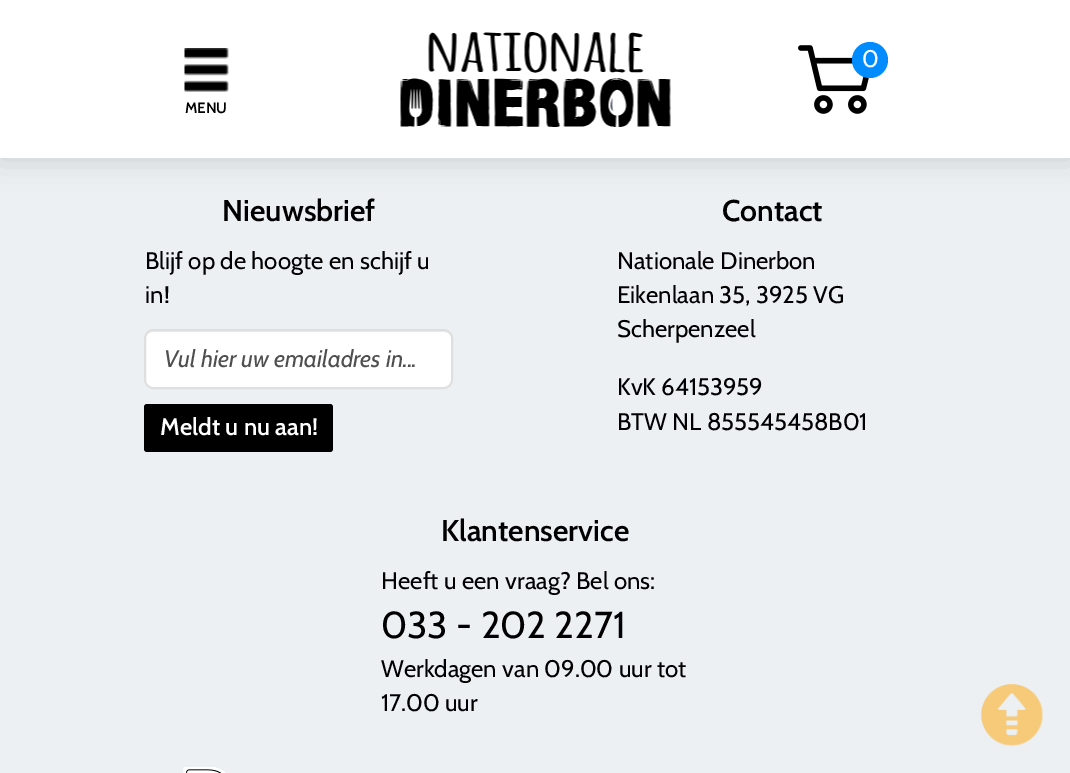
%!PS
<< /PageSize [1070 773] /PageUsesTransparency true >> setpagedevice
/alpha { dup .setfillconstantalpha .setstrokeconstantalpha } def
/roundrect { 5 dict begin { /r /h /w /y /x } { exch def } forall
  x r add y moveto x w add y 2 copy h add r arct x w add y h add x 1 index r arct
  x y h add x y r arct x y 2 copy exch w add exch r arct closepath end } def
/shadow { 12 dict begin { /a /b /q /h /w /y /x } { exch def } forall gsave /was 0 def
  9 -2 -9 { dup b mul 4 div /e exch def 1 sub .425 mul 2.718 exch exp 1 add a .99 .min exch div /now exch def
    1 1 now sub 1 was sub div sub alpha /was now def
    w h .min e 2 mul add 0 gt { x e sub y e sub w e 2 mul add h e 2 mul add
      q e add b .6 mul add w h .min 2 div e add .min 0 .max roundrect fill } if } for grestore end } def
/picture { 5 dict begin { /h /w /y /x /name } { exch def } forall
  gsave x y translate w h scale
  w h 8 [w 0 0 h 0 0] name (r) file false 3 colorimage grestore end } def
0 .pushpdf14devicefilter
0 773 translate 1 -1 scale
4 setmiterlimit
0.925 0.941 0.953 setrgbcolor
0 0 1070 773 rectfill
0 setgray
0 0 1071 158 0 15 0.15 shadow
1 setgray
0 0 1070 158 rectfill
(img1.rgb) 400 32 271 95 picture
(img2.rgb) 798 45 71 69 picture
0 0.549 1 setrgbcolor
newpath 870 60 18 0 360 arc closepath fill
/Cabin-Regular [24 0 0 -24 0 0] selectfont
1 setgray
862 67 moveto (0) show
(img3.rgb) 184 48 45 44 picture
/Cabin-SemiBold [15 0 0 -15 0 0] selectfont
0 setgray
185 113 moveto (MENU) show
/Cabin-SemiBold [30 0 0 -30 0 0] selectfont
222 221 moveto (Nieuwsbrief) show
/Cabin-Regular [24 0 0 -24 0 0] selectfont
145 269 moveto (Blijf op de hoogte en schijf u) show
145 303 moveto (in!) show
1 setgray
144 329 309 60 9 roundrect fill
0.925 setgray
newpath 153 332 moveto 444 332 lineto 448 332 452 335 452 339 curveto 452 334 449 330 444 330 curveto 152 330 lineto 148 331 146 335 146 339 curveto 146 335 149 332 153 332 curveto closepath fill
0.875 setgray
2 setlinewidth
145 330 307 58 8 roundrect stroke
/Cabin-Italic [24 0 0 -24 0 0] selectfont
0.31 setgray
164 367 moveto (Vul hier uw emailadres in...) show
0 setgray
144 404 189 48 3 roundrect fill
0.07 alpha
newpath 147 405 moveto 330 405 lineto 332 405 333 406 333 408 curveto 333 406 332 404 330 404 curveto 147 404 lineto 145 404 144 406 144 408 curveto 144 406 145 405 147 405 curveto closepath fill
/Cabin-SemiBold [24 0 0 -24 0 0] selectfont
1 alpha
1 setgray
160 435 moveto (Meldt u nu aan!) show
/Cabin-SemiBold [30 0 0 -30 0 0] selectfont
0 setgray
722 221 moveto (Contact) show
/Cabin-Regular [24 0 0 -24 0 0] selectfont
617 269 moveto (Nationale Dinerbon) show
617 303 moveto (Eikenlaan 35, 3925 VG) show
617 337 moveto (Scherpenzeel) show
617 395 moveto (KvK 64153959) show
617 430 moveto (BTW NL 855545458B01) show
/Cabin-SemiBold [30 0 0 -30 0 0] selectfont
441 541 moveto (Klantenservice) show
/Cabin-Regular [24 0 0 -24 0 0] selectfont
381 589 moveto (Heeft u een vraag? Bel ons:) show
/Cabin-Regular [37.5 0 0 -37.5 0 0] selectfont
381 638 moveto (033 - 202 2271) show
/Cabin-Regular [24 0 0 -24 0 0] selectfont
381 677 moveto (Werkdagen van 09.00 uur tot) show
381 711 moveto (17.00 uur) show
(img4.rgb) 981 684 62 62 picture
(img5.rgb) 183 767 43 6 picture
.poppdf14devicefilter showpage
